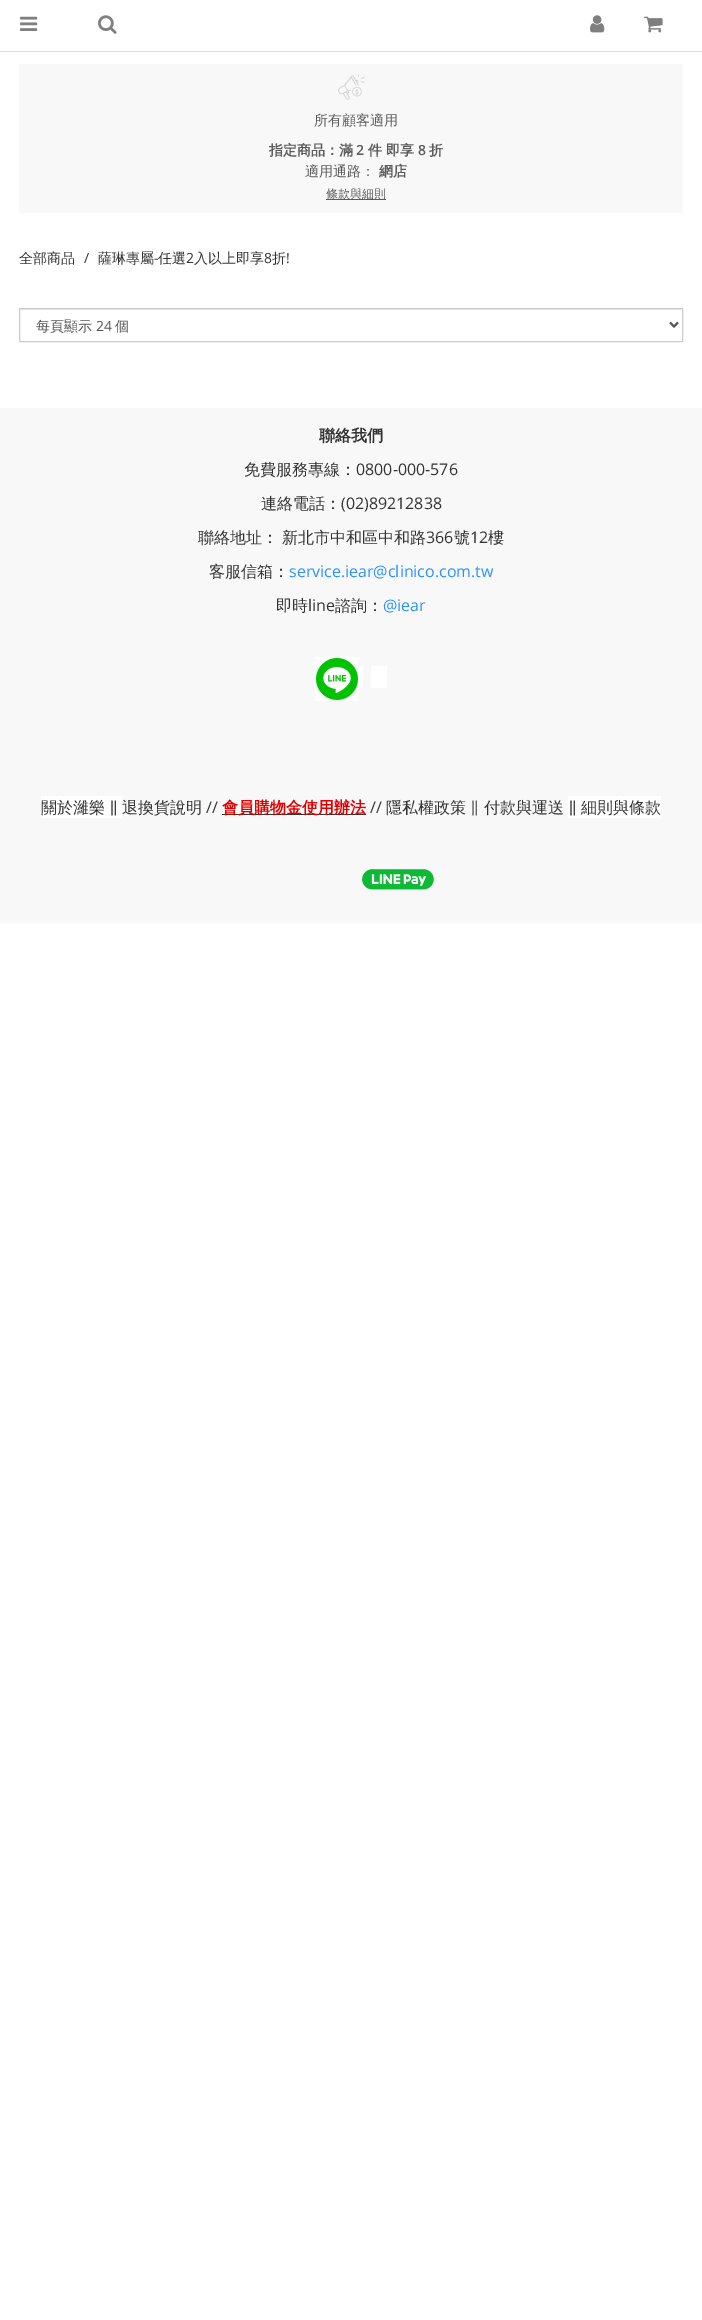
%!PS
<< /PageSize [702 2320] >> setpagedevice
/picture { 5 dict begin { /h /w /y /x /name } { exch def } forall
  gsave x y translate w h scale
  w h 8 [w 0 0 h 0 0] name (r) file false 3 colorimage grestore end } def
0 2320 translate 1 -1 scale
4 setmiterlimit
1 setgray
0 0 702 2320 rectfill
0.867 setgray
0 51 702 1 rectfill
(img1.rgb) 20 16 18 15 picture
(img2.rgb) 98 15 19 19 picture
(img3.rgb) 590 15 15 18 picture
(img4.rgb) 644 16 19 17 picture
0.973 setgray
19 64 664 149 rectfill
(img5.rgb) 338 74 27 26 picture
/WenQuanYiZenHei-Medium [14 0 0 -14 0 0] selectfont
0.357 setgray
314 125 moveto (所有顧客適用) show
/WenQuanYiZenHei-Bold [14 0 0 -14 0 0] selectfont
269 155 moveto (指定商品：滿) show
/OpenSans-SemiBold [14 0 0 -14 0 0] selectfont
356 155 moveto (2) show
/WenQuanYiZenHei-Bold [14 0 0 -14 0 0] selectfont
368 155 moveto (件 即享) show
/OpenSans-SemiBold [14 0 0 -14 0 0] selectfont
418 155 moveto (8) show
/WenQuanYiZenHei-Bold [14 0 0 -14 0 0] selectfont
429 155 moveto (折) show
/WenQuanYiZenHei-Medium [14 0 0 -14 0 0] selectfont
305 176 moveto (適用通路：) show
/WenQuanYiZenHei-Bold [14 0 0 -14 0 0] selectfont
379 176 moveto (網店) show
326 199 60 1 rectfill
/WenQuanYiZenHei-Medium [12 0 0 -12 0 0] selectfont
326 198 moveto (條款與細則) show
/WenQuanYiZenHei-Medium [14 0 0 -14 0 0] selectfont
0.2 setgray
19 263 moveto (全部商品) show
/OpenSans-Regular [14 0 0 -14 0 0] selectfont
84 263 moveto (/) show
/WenQuanYiZenHei-Medium [14 0 0 -14 0 0] selectfont
98 263 moveto (薩琳專屬) show
/OpenSans-Regular [14 0 0 -14 0 0] selectfont
154 263 moveto (-) show
/WenQuanYiZenHei-Medium [14 0 0 -14 0 0] selectfont
158 263 moveto (任選) show
/OpenSans-Regular [14 0 0 -14 0 0] selectfont
186 263 moveto (2) show
/WenQuanYiZenHei-Medium [14 0 0 -14 0 0] selectfont
194 263 moveto (入以上即享) show
/OpenSans-Regular [14 0 0 -14 0 0] selectfont
264 263 moveto (8) show
/WenQuanYiZenHei-Medium [14 0 0 -14 0 0] selectfont
272 263 moveto (折) show
/OpenSans-Regular [14 0 0 -14 0 0] selectfont
286 263 moveto (!) show
0.925 setgray
20 309 662 1 rectfill
0.8 setgray
19.5 308.5 663 33 rectstroke
0.333 setgray
2 setlinewidth
newpath 670 322.5 moveto 674 326.5 lineto 678 322.5 lineto stroke
/WenQuanYiZenHei-Medium [14 0 0 -14 0 0] selectfont
36 331 moveto (每頁顯示) show
/OpenSans-Regular [14 0 0 -14 0 0] selectfont
96 331 moveto (24) show
/WenQuanYiZenHei-Medium [14 0 0 -14 0 0] selectfont
115 331 moveto (個) show
0.973 setgray
0 408 702 515 rectfill
/WenQuanYiZenHei-Bold [16 0 0 -16 0 0] selectfont
0.2 setgray
319 441 moveto (聯絡我們) show
/WenQuanYiZenHei-Medium [16 0 0 -16 0 0] selectfont
244 475 moveto (免費服務專線：) show
/OpenSans-Regular [16 0 0 -16 0 0] selectfont
356 475 moveto (0800-000-576) show
/WenQuanYiZenHei-Medium [16 0 0 -16 0 0] selectfont
261 509 moveto (連絡電話：) show
/OpenSans-Regular [16 0 0 -16 0 0] selectfont
341 509 moveto (\(02\)89212838) show
/WenQuanYiZenHei-Medium [16 0 0 -16 0 0] selectfont
198 543 moveto (聯絡地址：) show
282 543 moveto (新北市中和區中和路) show
/OpenSans-Regular [16 0 0 -16 0 0] selectfont
426 543 moveto (366) show
/WenQuanYiZenHei-Medium [16 0 0 -16 0 0] selectfont
454 543 moveto (號) show
/OpenSans-Regular [16 0 0 -16 0 0] selectfont
470 543 moveto (12) show
/WenQuanYiZenHei-Medium [16 0 0 -16 0 0] selectfont
488 543 moveto (樓) show
209 577 moveto (客服信箱：) show
/OpenSans-Regular [16 0 0 -16 0 0] selectfont
0.169 0.569 1 setrgbcolor
289 577 moveto (service.iear@clinico.com.tw) show
/WenQuanYiZenHei-Medium [16 0 0 -16 0 0] selectfont
0.2 setgray
276 611 moveto (即時) show
/OpenSans-Regular [16 0 0 -16 0 0] selectfont
308 611 moveto (line) show
/WenQuanYiZenHei-Medium [16 0 0 -16 0 0] selectfont
335 611 moveto (諮詢：) show
/OpenSans-Regular [16 0 0 -16 0 0] selectfont
0.169 0.569 1 setrgbcolor
383 611 moveto (@iear) show
1 setgray
315 657 44 44 rectfill
359 666 4 22 rectfill
(img6.rgb) 316 658 42 42 picture
371 666 16 22 rectfill
41 796 81 22 rectfill
/WenQuanYiZenHei-Medium [16 0 0 -16 0 0] selectfont
0.2 setgray
41 813 moveto (關於濰樂) show
0 setgray
109 813 moveto (∥) show
0.2 setgray
122 813 moveto (退換貨說明) show
/OpenSans-Regular [16 0 0 -16 0 0] selectfont
206 813 moveto (//) show
222 814 144 1 rectfill
/WenQuanYiZenHei-Bold [16 0 0 -16 0 0] selectfont
0.882 0 0 setrgbcolor
222 813 moveto (會員購物金使用辦法) show
/OpenSans-Regular [16 0 0 -16 0 0] selectfont
0.2 setgray
370 813 moveto (//) show
/WenQuanYiZenHei-Medium [16 0 0 -16 0 0] selectfont
386 813 moveto (隱私權政策) show
470 813 moveto (∥) show
484 813 moveto (付款與運送) show
1 setgray
568 796 93 22 rectfill
0 setgray
568 813 moveto (∥) show
0.2 setgray
581 813 moveto (細則與條款) show
(img7.rgb) 362 869 72 21 picture
showpage
